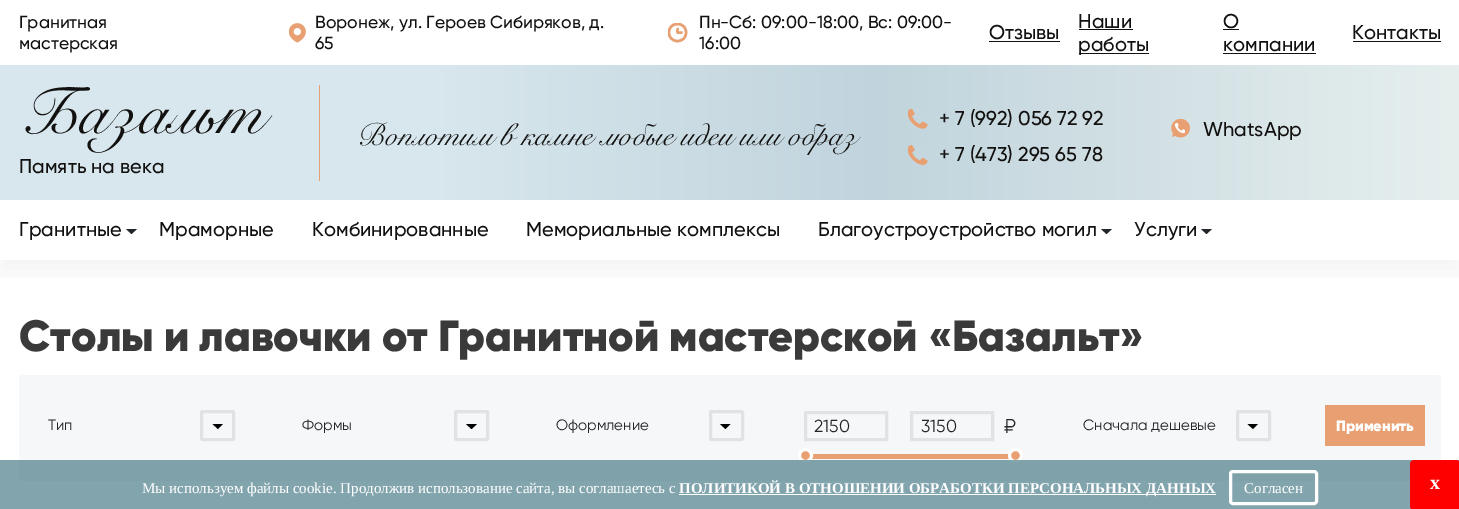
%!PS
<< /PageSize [1459 509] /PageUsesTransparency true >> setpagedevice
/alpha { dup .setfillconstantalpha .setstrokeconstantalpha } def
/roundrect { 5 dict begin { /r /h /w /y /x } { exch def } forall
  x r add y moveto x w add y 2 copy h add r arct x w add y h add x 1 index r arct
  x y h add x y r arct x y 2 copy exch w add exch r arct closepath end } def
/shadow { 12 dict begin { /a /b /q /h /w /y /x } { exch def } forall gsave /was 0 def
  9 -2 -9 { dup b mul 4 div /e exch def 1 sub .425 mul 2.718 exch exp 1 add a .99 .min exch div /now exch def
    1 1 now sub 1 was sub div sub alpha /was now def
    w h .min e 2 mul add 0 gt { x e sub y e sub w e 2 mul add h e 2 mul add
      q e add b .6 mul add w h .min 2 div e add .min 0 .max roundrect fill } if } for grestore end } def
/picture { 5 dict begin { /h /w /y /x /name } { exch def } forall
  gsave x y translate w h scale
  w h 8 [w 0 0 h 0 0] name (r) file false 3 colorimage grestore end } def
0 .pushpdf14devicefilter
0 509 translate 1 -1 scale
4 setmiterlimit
1 setgray
0 0 1459 509 rectfill
/Gilroy-Medium [17.5 0 0 -17.5 0 0] selectfont
0.071 0.067 0.063 setrgbcolor
19 28 moveto (Гранитная) show
19 49 moveto (мастерская) show
(img1.rgb) 289 23 17 20 picture
315 28 moveto (Воронеж, ул. Героев Сибиряков, д.) show
315 49 moveto (65) show
gsave
668 23 20 20 rectclip
0.91 0.624 0.443 setrgbcolor
2.5 setlinewidth
newpath 677.5 41 moveto 689 41 689 24 677.5 24 curveto 666 24 666 41 677.5 41 curveto closepath stroke
grestore
0.91 0.624 0.443 setrgbcolor
2.5 setlinewidth
1 setlinecap
newpath 681.5 32.5 moveto 677 32.5 677.5 34 677.5 29 curveto stroke
0.071 0.067 0.063 setrgbcolor
699 28 moveto (Пн-Сб: 09:00-18:00, Вс: 09:00-) show
699 49 moveto (16:00) show
/Gilroy-Medium [20 0 0 -20 0 0] selectfont
989 39 moveto (Отзывы) show
989 41 71 1 rectfill
1078 28 moveto (Наши) show
1079 29 54 1 rectfill
1079 53 70 1 rectfill
1078 51 moveto (работы) show
1223 28 moveto (О) show
1223 29 16 1 rectfill
1223 51 moveto (компании) show
1223 53 93 1 rectfill
1352 39 moveto (Контакты) show
1353 41 88 1 rectfill
gsave newpath 0 65 moveto 1459 65 lineto 1459 200 lineto 0 200 lineto closepath clip newpath
<< /ShadingType 2 /ColorSpace /DeviceRGB /Coords [0 133 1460 132] /Extend [true true] /Function << /FunctionType 3 /Domain [0 1] /Functions [<< /FunctionType 2 /Domain [0 1] /C0 [0.847 0.906 0.929] /C1 [0.847 0.906 0.929] /N 1 >> << /FunctionType 2 /Domain [0 1] /C0 [0.847 0.906 0.929] /C1 [0.757 0.831 0.867] /N 1 >> << /FunctionType 2 /Domain [0 1] /C0 [0.757 0.831 0.867] /C1 [0.902 0.937 0.933] /N 1 >>] /Bounds [0.3 0.6] /Encode [0 1 0 1 0 1] >> >> shfill grestore
/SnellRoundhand-Medium [67.5 0 0 -67.5 0 0] selectfont
19 133 moveto (Базальт) show
/Gilroy-Medium [20 0 0 -20 0 0] selectfont
19 173 moveto (Память на века) show
0.91 0.624 0.443 setrgbcolor
319 85 1 96 rectfill
/SnellRoundhand-Medium [31.25 0 0 -31.25 0 0] selectfont
0.071 0.067 0.063 setrgbcolor
357 145 moveto (Воплотим в камне любые идеи или образ) show
(img2.rgb) 908 109 20 20 picture
/Gilroy-Medium [20 0 0 -20 0 0] selectfont
939 125 moveto (+ 7 \(992\) 056 72 92) show
(img3.rgb) 908 145 20 20 picture
939 161 moveto (+ 7 \(473\) 295 65 78) show
(img5.rgb) 1171 119 19 19 picture
(img4.rgb) 1175 123 10 10 picture
1203 136 moveto (WhatsApp) show
gsave
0 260 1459 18 rectclip
0.161 0.161 0.165 setrgbcolor
0 213 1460 60 0 12.5 0.06 shadow
grestore
19 236 moveto (Гранитные) show
0.133 0.149 0.165 setrgbcolor
newpath 131.5 234 moveto 126 229 lineto 137 229 lineto closepath fill
0.071 0.067 0.063 setrgbcolor
159 236 moveto (Мраморные) show
312 236 moveto (Комбинированные) show
526 236 moveto (Мемориальные комплексы) show
818 236 moveto (Благоустроустройство могил) show
0.133 0.149 0.165 setrgbcolor
newpath 1106.5 234 moveto 1101 229 lineto 1112 229 lineto closepath fill
0.071 0.067 0.063 setrgbcolor
1134 236 moveto (Услуги) show
0.133 0.149 0.165 setrgbcolor
newpath 1206.5 234 moveto 1201 229 lineto 1212 229 lineto closepath fill
/Gilroy-Black [43.75 0 0 -43.75 0 0] selectfont
0.227 setgray
19 351 moveto (Столы и лавочки от Гранитной мастерской «Базальт») show
0.965 0.969 0.973 setrgbcolor
19 375 1422 106 2.5 roundrect fill
/Gilroy-Regular [15 0 0 -15 0 0] selectfont
0.133 0.149 0.165 setrgbcolor
48 430 moveto (Тип) show
0.882 0.886 0.89 setrgbcolor
3 setlinewidth
0 setlinecap
201.5 411.5 32 28 1 roundrect stroke
0 setgray
newpath 218 429 moveto 212.5 424 lineto 223 424 lineto closepath fill
0.133 0.149 0.165 setrgbcolor
302 430 moveto (Формы) show
0.882 0.886 0.89 setrgbcolor
455.5 411.5 32 28 1 roundrect stroke
0 setgray
newpath 471.5 429 moveto 466 424 lineto 477 424 lineto closepath fill
0.133 0.149 0.165 setrgbcolor
556 430 moveto (Оформление) show
0.882 0.886 0.89 setrgbcolor
710.5 411.5 32 28 1 roundrect stroke
0 setgray
newpath 725.5 429 moveto 720 424 lineto 730.5 424 lineto closepath fill
0.882 0.886 0.89 setrgbcolor
805.5 412.5 81 27 rectstroke
/Gilroy-Regular [17.5 0 0 -17.5 0 0] selectfont
0.133 0.149 0.165 setrgbcolor
814 432 moveto (2150) show
0.882 0.886 0.89 setrgbcolor
911.5 412.5 81 27 rectstroke
0.133 0.149 0.165 setrgbcolor
921 432 moveto (3150) show
/Gilroy-Regular [20 0 0 -20 0 0] selectfont
1004 433 moveto (₽) show
0.882 0.89 0.894 setrgbcolor
798 454 225 5 rectfill
0.91 0.624 0.443 setrgbcolor
805 454 210 5 rectfill
newpath 805.5 455.5 6 0 360 arc closepath gsave fill grestore
1 setgray
stroke
0.91 0.624 0.443 setrgbcolor
newpath 1015.5 455.5 6 0 360 arc closepath gsave fill grestore
1 setgray
stroke
/Gilroy-Regular [15 0 0 -15 0 0] selectfont
0.133 0.149 0.165 setrgbcolor
1083 430 moveto (Сначала дешевые) show
0.882 0.886 0.89 setrgbcolor
1237.5 411.5 32 28 1 roundrect stroke
0 setgray
newpath 1253 429 moveto 1247.5 424 lineto 1258 424 lineto closepath fill
0.91 0.624 0.443 setrgbcolor
1325 405 100 41 rectfill
/Gilroy-Black [15 0 0 -15 0 0] selectfont
1 setgray
1336 431 moveto (Применить) show
0.67 alpha
0.267 0.471 0.518 setrgbcolor
0 460 1459 49 rectfill
/LiberationSerif-Regular [15 0 0 -15 0 0] selectfont
1 alpha
1 setgray
142 493 moveto (Мы используем файлы cookie. Продолжив использование сайта, вы соглашаетесь с) show
679 494 537 1 rectfill
/LiberationSerif-Bold [15 0 0 -15 0 0] selectfont
679 493 moveto (ПОЛИТИКОЙ В ОТНОШЕНИИ ОБРАБОТКИ ПЕРСОНАЛЬНЫХ ДАННЫХ) show
1230.5 471.5 86 32 2.5 roundrect stroke
/LiberationSerif-Regular [15 0 0 -15 0 0] selectfont
1244 493 moveto (Согласен) show
1 0 0 setrgbcolor
1410 460 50 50 4 roundrect fill
/LiberationSerif-Bold [20 0 0 -20 0 0] selectfont
1 setgray
1430 489 moveto (x) show
.poppdf14devicefilter showpage
